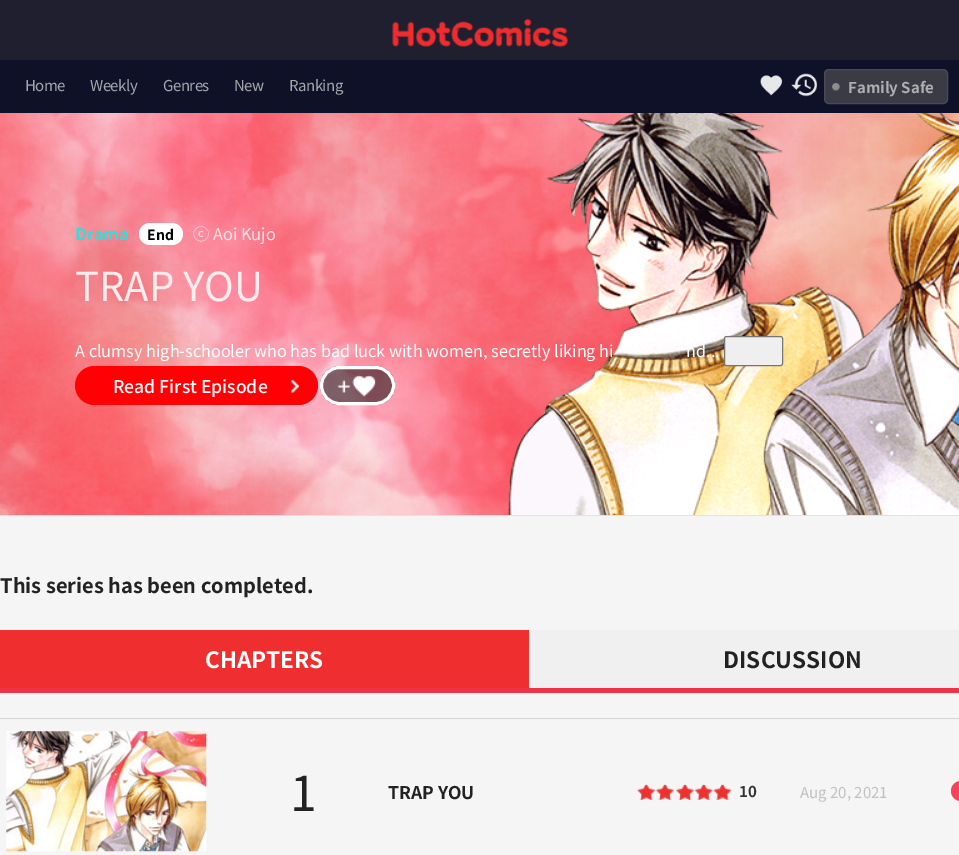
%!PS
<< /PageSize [959 855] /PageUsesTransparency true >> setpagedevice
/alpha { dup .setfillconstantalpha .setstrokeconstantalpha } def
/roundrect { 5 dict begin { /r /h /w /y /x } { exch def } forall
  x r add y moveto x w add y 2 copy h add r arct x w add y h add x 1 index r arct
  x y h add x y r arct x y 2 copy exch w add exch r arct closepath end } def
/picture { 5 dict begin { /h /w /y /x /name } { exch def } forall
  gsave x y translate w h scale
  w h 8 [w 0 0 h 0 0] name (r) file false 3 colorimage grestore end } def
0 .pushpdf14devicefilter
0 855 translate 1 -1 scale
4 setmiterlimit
0.961 setgray
0 0 959 855 rectfill
0.059 0.067 0.157 setrgbcolor
0 60 959 53 rectfill
0.122 0.122 0.184 setrgbcolor
0 0 959 60 rectfill
(img1.rgb) 392 18 176 29 picture
0.067 0.067 0.133 setrgbcolor
16.5 69.5 57 31 15.5 roundrect stroke
/NotoSansSC-Regular [15 0 0 -15 0 0] selectfont
0.651 0.651 0.671 setrgbcolor
25 91 moveto -0.5 0 (Home) ashow
0.067 0.067 0.133 setrgbcolor
81.5 69.5 64 31 15.5 roundrect stroke
0.651 0.651 0.671 setrgbcolor
90 91 moveto -0.5 0 (Weekly) ashow
0.067 0.067 0.133 setrgbcolor
154.5 69.5 63 31 15.5 roundrect stroke
0.651 0.651 0.671 setrgbcolor
163 91 moveto -0.5 0 (Genres) ashow
0.067 0.067 0.133 setrgbcolor
225.5 69.5 47 31 15.5 roundrect stroke
0.651 0.651 0.671 setrgbcolor
234 91 moveto -0.5 0 (New) ashow
0.067 0.067 0.133 setrgbcolor
280.5 69.5 70 31 15.5 roundrect stroke
0.651 0.651 0.671 setrgbcolor
289 91 moveto -0.5 0 (Ranking) ashow
(img2.rgb) 760 75 23 21 picture
(img3.rgb) 791 73 27 24 picture
0.227 0.231 0.267 setrgbcolor
824 69 124 35 5 roundrect fill
(img4.rgb) 832 83 8 8 picture
0.29 0.294 0.341 setrgbcolor
824.5 69.5 123 34 4.5 roundrect stroke
/NotoSansSC-Bold [15 0 0 -15 0 0] selectfont
0.686 0.686 0.698 setrgbcolor
848 93 moveto (Family Safe) show
0.886 setgray
0 515 959 1 rectfill
(img5.rgb) 0 113 959 402 picture
(img6.rgb) 508 113 451 402 picture
/NotoSansSC-Bold [16.25 0 0 -16.25 0 0] selectfont
0.192 0.871 0.851 setrgbcolor
75 240 moveto (Drama) show
1 setgray
139 223 44 22 11 roundrect fill
/NotoSansSC-Bold [14 0 0 -14 0 0] selectfont
0 setgray
147 240 moveto (End) show
/NotoSansSC-Regular [16.25 0 0 -16.25 0 0] selectfont
0.996 0.902 0.914 setrgbcolor
193 240 moveto (ⓒ Aoi Kujo) show
/NotoSansSC-Regular [40 0 0 -40 0 0] selectfont
0.996 0.929 0.937 setrgbcolor
75 301 moveto (TRAP YOU) show
/NotoSansSC-Regular [16.25 0 0 -16.25 0 0] selectfont
1 setgray
75 357 moveto (A clumsy high-schooler who has bad luck with women, secretly liking hi) show
686 357 moveto (nd...) show
0.937 setgray
724.5 336.5 58 29 2 roundrect gsave fill grestore
0.463 setgray
stroke
1 0 0.016 setrgbcolor
75 366 243 39 19.5 roundrect fill
(img7.rgb) 291 379 8 14 picture
/NotoSansSC-Medium [17.5 0 0 -17.5 0 0] selectfont
1 setgray
113 393 moveto (Read First Episode) show
0.5 alpha
0 setgray
320 366 75 39 19.5 roundrect fill
1 alpha
(img8.rgb) 337 375 39 22 picture
1 setgray
3 setlinewidth
321.5 367.5 72 36 18 roundrect stroke
/NotoSansSC-Bold [20 0 0 -20 0 0] selectfont
0.133 setgray
0 593 moveto (This series has been completed.) show
0.933 0.18 0.184 setrgbcolor
0 630 529 58 rectfill
0.922 0.2 0.286 setrgbcolor
0 688 959 5 rectfill
/NotoSansSC-Bold [22.5 0 0 -22.5 0 0] selectfont
1 setgray
205 668 moveto (CHAPTERS) show
0.941 setgray
529 630 430 58 rectfill
0.133 setgray
723 668 moveto (DISCUSSION) show
0.835 setgray
0 718 959 1 rectfill
(img9.rgb) 6 731 201 121 picture
/NotoSansSC-Regular [48 0 0 -48 0 0] selectfont
0.133 setgray
290 811 moveto (1) show
/NotoSansSC-Bold [17.5 0 0 -17.5 0 0] selectfont
388 799 moveto (TRAP YOU) show
(img10.rgb) 637 784 95 16 picture
(img11.rgb) 637 785 95 15 picture
/NotoSansSC-Bold [15 0 0 -15 0 0] selectfont
0.2 setgray
739 797 moveto (10) show
/NotoSansSC-Regular [15 0 0 -15 0 0] selectfont
0.753 setgray
800 798 moveto (Aug 20, 2021) show
0.957 0.263 0.357 setrgbcolor
newpath 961 781 moveto 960 781 lineto 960 801 lineto 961 801 lineto 955.5 801 951 796.5 951 791 curveto 951 785.5 955.5 781 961 781 curveto closepath fill
.poppdf14devicefilter showpage
